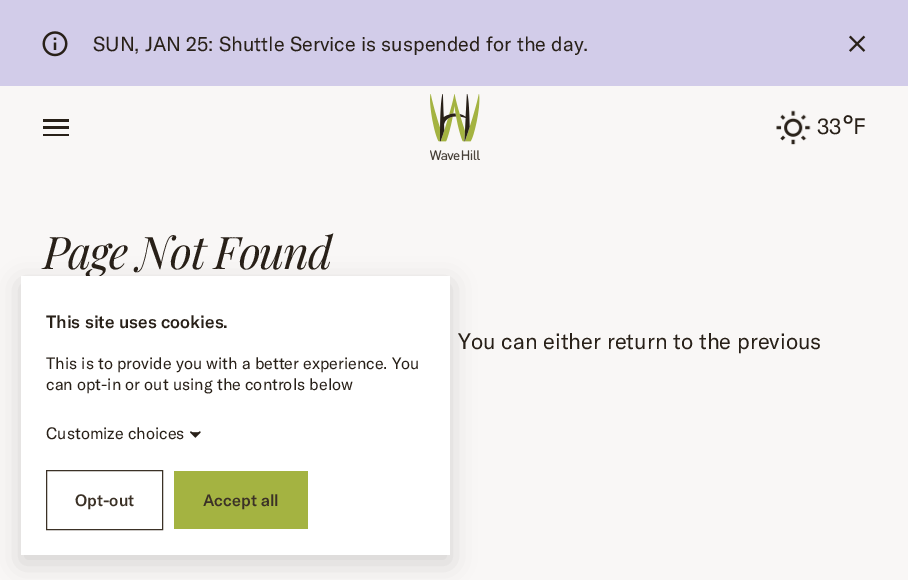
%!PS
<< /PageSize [908 580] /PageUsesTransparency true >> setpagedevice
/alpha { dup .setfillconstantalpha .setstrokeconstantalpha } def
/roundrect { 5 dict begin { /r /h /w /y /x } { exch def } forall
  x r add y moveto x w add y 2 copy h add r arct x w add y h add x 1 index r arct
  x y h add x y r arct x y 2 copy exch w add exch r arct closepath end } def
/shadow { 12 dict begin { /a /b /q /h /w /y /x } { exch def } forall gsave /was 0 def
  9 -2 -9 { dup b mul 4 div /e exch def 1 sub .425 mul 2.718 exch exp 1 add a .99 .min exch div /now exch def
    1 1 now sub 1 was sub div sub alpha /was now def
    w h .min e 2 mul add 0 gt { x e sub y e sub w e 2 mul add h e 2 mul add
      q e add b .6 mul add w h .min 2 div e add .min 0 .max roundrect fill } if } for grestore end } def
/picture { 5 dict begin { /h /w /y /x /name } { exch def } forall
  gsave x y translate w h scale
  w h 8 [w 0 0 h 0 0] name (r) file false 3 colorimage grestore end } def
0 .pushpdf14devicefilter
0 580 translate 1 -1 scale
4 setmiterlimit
0.976 0.969 0.965 setrgbcolor
0 0 908 580 rectfill
0.824 0.8 0.914 setrgbcolor
0 0 908 86 rectfill
(img1.rgb) 42 31 26 26 picture
/GTAmerica-Regular [20 0 0 -20 0 0] selectfont
0.157 0.125 0.094 setrgbcolor
93 51 moveto (SUN, JAN 25: Shuttle Service is suspended for the day.) show
(img2.rgb) 849 35 17 17 picture
43 119 26 3 rectfill
43 126 26 3 rectfill
43 134 26 2 rectfill
(img3.rgb) 430 94 50 66 picture
(img4.rgb) 776 110 35 35 picture
/GTAmerica-Regular [22 0 0 -22 0 0] selectfont
817 134 moveto (33) show
/GTAmerica-Regular [25 0 0 -25 0 0] selectfont
843 133 moveto (°) show
/GTAmerica-Regular [22 0 0 -22 0 0] selectfont
853 134 moveto (F) show
/PlayfairDisplay-Italic [45 0 0 -45 0 0] selectfont
43 269 moveto -1.4 0 (Page Not Found) ashow
/GTAmerica-Regular [22 0 0 -22 0 0] selectfont
458 349 moveto (You can either return to the previous) show
0.02 setgray
21 284 429 279 0 12.5 0.15 shadow
1 setgray
21 276 429 279 rectfill
/GTAmerica-Medium [17.5 0 0 -17.5 0 0] selectfont
0.157 0.125 0.094 setrgbcolor
46 328 moveto (This site uses cookies.) show
/GTAmerica-Regular [16.25 0 0 -16.25 0 0] selectfont
46 369 moveto (This is to provide you with a better experience. You) show
46 390 moveto (can opt-in or out using the controls below) show
46 439 moveto (Customize choices) show
(img5.rgb) 190 431 11 7 picture
0.231 0.192 0.149 setrgbcolor
46.5 470.5 116 59 rectstroke
/GTAmerica-Medium [16.25 0 0 -16.25 0 0] selectfont
75 506 moveto (Opt-out) show
0.643 0.702 0.255 setrgbcolor
174 471 134 58 rectfill
0.231 0.192 0.149 setrgbcolor
203 506 moveto (Accept all) show
.poppdf14devicefilter showpage
